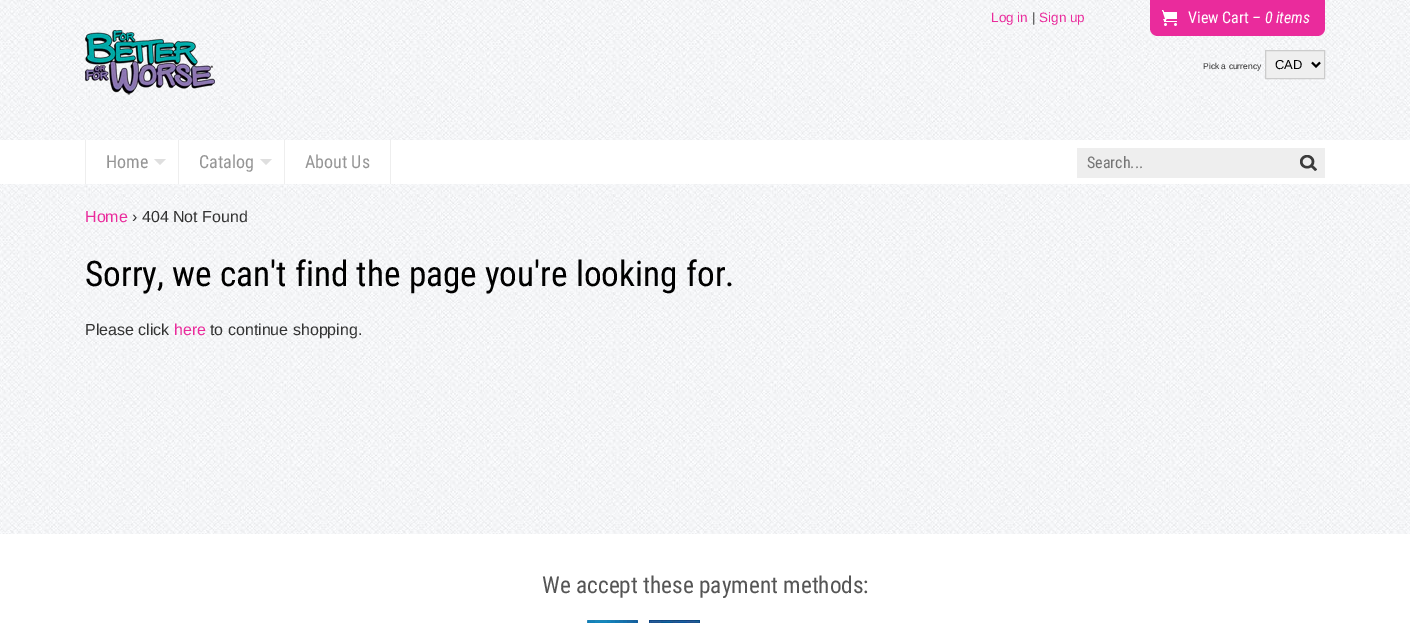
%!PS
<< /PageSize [1410 623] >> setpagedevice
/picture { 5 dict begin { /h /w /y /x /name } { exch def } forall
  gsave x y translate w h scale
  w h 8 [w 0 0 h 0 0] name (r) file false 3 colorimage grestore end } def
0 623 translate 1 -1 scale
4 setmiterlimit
1 setgray
0 0 1410 623 rectfill
(img1.rgb) 0 0 1410 534 picture
/LiberationSans-Regular [13.5 0 0 -13.5 0 0] selectfont
0.918 0.169 0.612 setrgbcolor
991 22 moveto (Log in) show
0.2 setgray
1032 22 moveto (|) show
0.918 0.169 0.612 setrgbcolor
1039 22 moveto (Sign up) show
newpath 1150 0 moveto 1325 0 lineto 1325 28 lineto 1325 32.5 1321.5 36 1317 36 curveto 1158 36 lineto 1153.5 36 1150 32.5 1150 28 curveto closepath fill
(img2.rgb) 1162 10 15 16 picture
/RobotoCondensed-Regular [16 0 0 -16 0 0] selectfont
1 setgray
1188 23 moveto (View Cart) show
/RobotoCondensed-Italic [16 0 0 -16 0 0] selectfont
1252 23 moveto (– 0 items) show
(img3.rgb) 85 30 130 65 picture
/LiberationSans-Regular [8.5 0 0 -8.5 0 0] selectfont
0.2 setgray
1203 69 moveto (Pick a currency) show
0.937 setgray
newpath 1265.5 50.5 moveto 1324.5 50.5 lineto 1324.5 78.5 lineto 1265.5 78.5 lineto closepath gsave fill grestore
0.8 setgray
stroke
0 setgray
2 setlinewidth
newpath 1312 62.5 moveto 1316 66.5 lineto 1320 62.5 lineto stroke
/LiberationSans-Regular [13 0 0 -13 0 0] selectfont
1275 69 moveto (CAD) show
1 setgray
0 140 1410 44 rectfill
0.933 setgray
85 140 1 44 rectfill
178 140 1 44 rectfill
/RobotoCondensed-Regular [18 0 0 -18 0 0] selectfont
0.584 setgray
106 168 moveto (Home) show
0.875 setgray
newpath 154 159 moveto 166 159 lineto 160 165 lineto closepath fill
0.933 setgray
284 140 1 44 rectfill
0.584 setgray
199 168 moveto (Catalog) show
0.875 setgray
newpath 260 159 moveto 272 159 lineto 266 165 lineto closepath fill
0.933 setgray
390 140 1 44 rectfill
0.584 setgray
305 168 moveto (About Us) show
0.933 setgray
1077 148 248 30 rectfill
/RobotoCondensed-Regular [16 0 0 -16 0 0] selectfont
0.459 setgray
1087 168 moveto (Search...) show
(img4.rgb) 1300 155 17 16 picture
/LiberationSans-Regular [16 0 0 -16 0 0] selectfont
0.918 0.169 0.612 setrgbcolor
85 222 moveto (Home) show
0.2 setgray
132 222 moveto (› 404 Not Found) show
/RobotoCondensed-Regular [35.25 0 0 -35.25 0 0] selectfont
0 setgray
85 286 moveto (Sorry, we can't find the page you're looking for.) show
/LiberationSans-Regular [16 0 0 -16 0 0] selectfont
0.2 setgray
85 335 moveto (Please click) show
0.918 0.169 0.612 setrgbcolor
174 335 moveto (here) show
0.2 setgray
210 335 moveto (to continue shopping.) show
/RobotoCondensed-Regular [23.25 0 0 -23.25 0 0] selectfont
0.333 setgray
542 593 moveto (We accept these payment methods:) show
(img5.rgb) 587 620 51 3 picture
(img6.rgb) 649 620 51 3 picture
showpage
